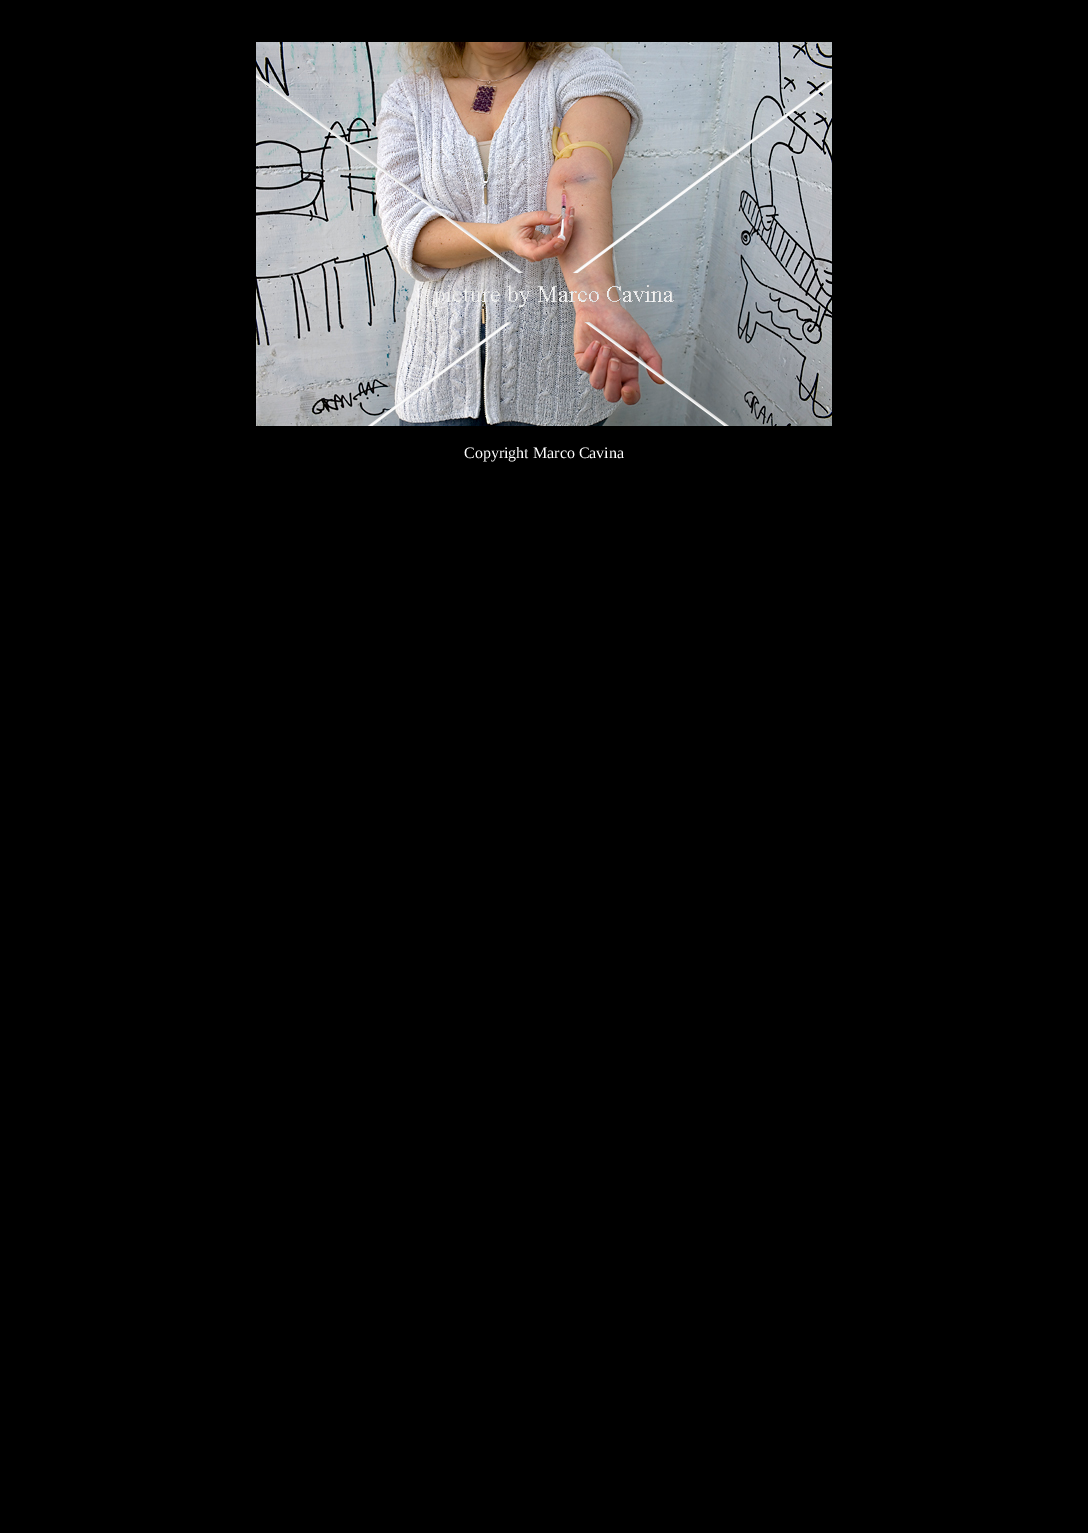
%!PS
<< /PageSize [1088 1533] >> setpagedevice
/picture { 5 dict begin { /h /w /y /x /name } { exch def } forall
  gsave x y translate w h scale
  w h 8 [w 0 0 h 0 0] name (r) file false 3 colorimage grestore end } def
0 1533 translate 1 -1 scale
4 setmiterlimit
0 setgray
0 0 1088 1533 rectfill
(img1.rgb) 256 42 576 384 picture
/LiberationSerif-Regular [16 0 0 -16 0 0] selectfont
1 setgray
464 458 moveto (Copyright Marco Cavina) show
showpage
